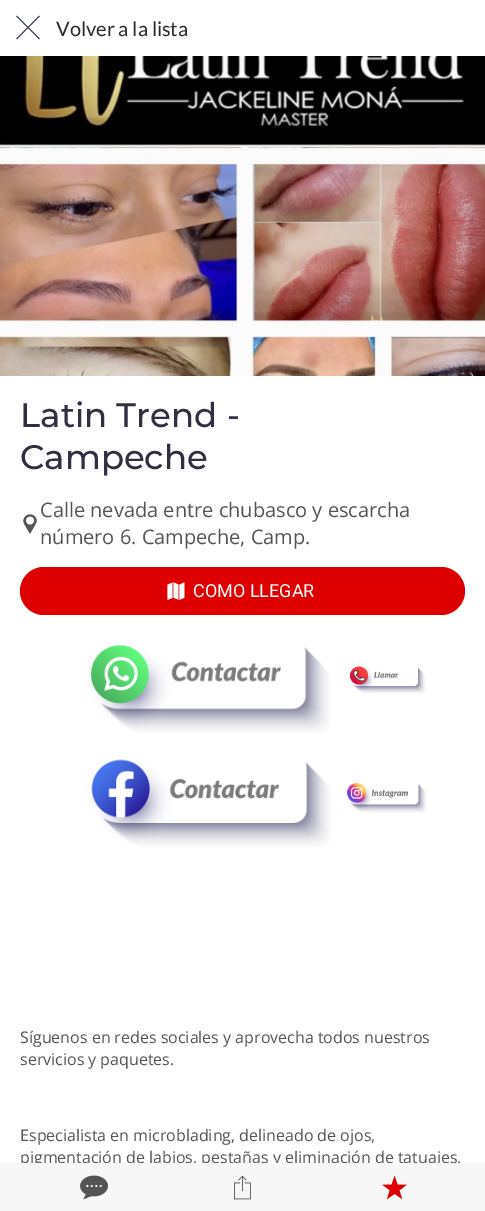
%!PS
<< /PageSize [485 1211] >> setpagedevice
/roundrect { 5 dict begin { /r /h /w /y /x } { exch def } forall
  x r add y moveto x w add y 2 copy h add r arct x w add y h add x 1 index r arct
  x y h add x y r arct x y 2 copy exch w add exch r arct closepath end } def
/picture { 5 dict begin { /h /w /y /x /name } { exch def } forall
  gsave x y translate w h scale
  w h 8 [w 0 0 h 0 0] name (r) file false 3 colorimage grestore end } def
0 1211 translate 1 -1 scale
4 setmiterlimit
1 setgray
0 0 485 1211 rectfill
(img1.rgb) 16 15 24 25 picture
/Lato-Regular [20 0 0 -20 0 0] selectfont
0.161 setgray
56 36 moveto (Volver a la lista) show
(img2.rgb) 0 56 485 320 picture
/Montserrat-Medium [34 0 0 -34 0 0] selectfont
0.192 0.188 0.259 setrgbcolor
20 427 moveto (Latin Trend -) show
20 469 moveto (Campeche) show
/OpenSans-Regular [20 0 0 -20 0 0] selectfont
0.329 setgray
40 517 moveto (Calle nevada entre chubasco y escarcha) show
(img3.rgb) 23 514 14 20 picture
40 544 moveto (número 6. Campeche, Camp.) show
0.871 0 0 setrgbcolor
20 567 445 48 24 roundrect fill
(img4.rgb) 167 582 18 18 picture
/Roboto-Regular [18 0 0 -18 0 0] selectfont
1 setgray
193 597 moveto (COMO LLEGAR) show
(img5.rgb) 85 644 246 89 picture
(img6.rgb) 349 666 77 28 picture
(img7.rgb) 86 759 245 89 picture
(img8.rgb) 346 781 81 32 picture
/OpenSans-Regular [16 0 0 -16 0 0] selectfont
0.329 setgray
20 1043 moveto (Síguenos en redes sociales y aprovecha todos nuestros) show
20 1065 moveto (servicios y paquetes.) show
20 1141 moveto (Especialista en microblading, delineado de ojos,) show
20 1163 moveto (pigmentación de labios, pestañas y eliminación de tatuajes.) show
0.969 setgray
0 1163 485 48 rectfill
(img9.rgb) 80 1175 28 25 picture
(img10.rgb) 234 1175 17 25 picture
(img11.rgb) 382 1175 25 25 picture
showpage
